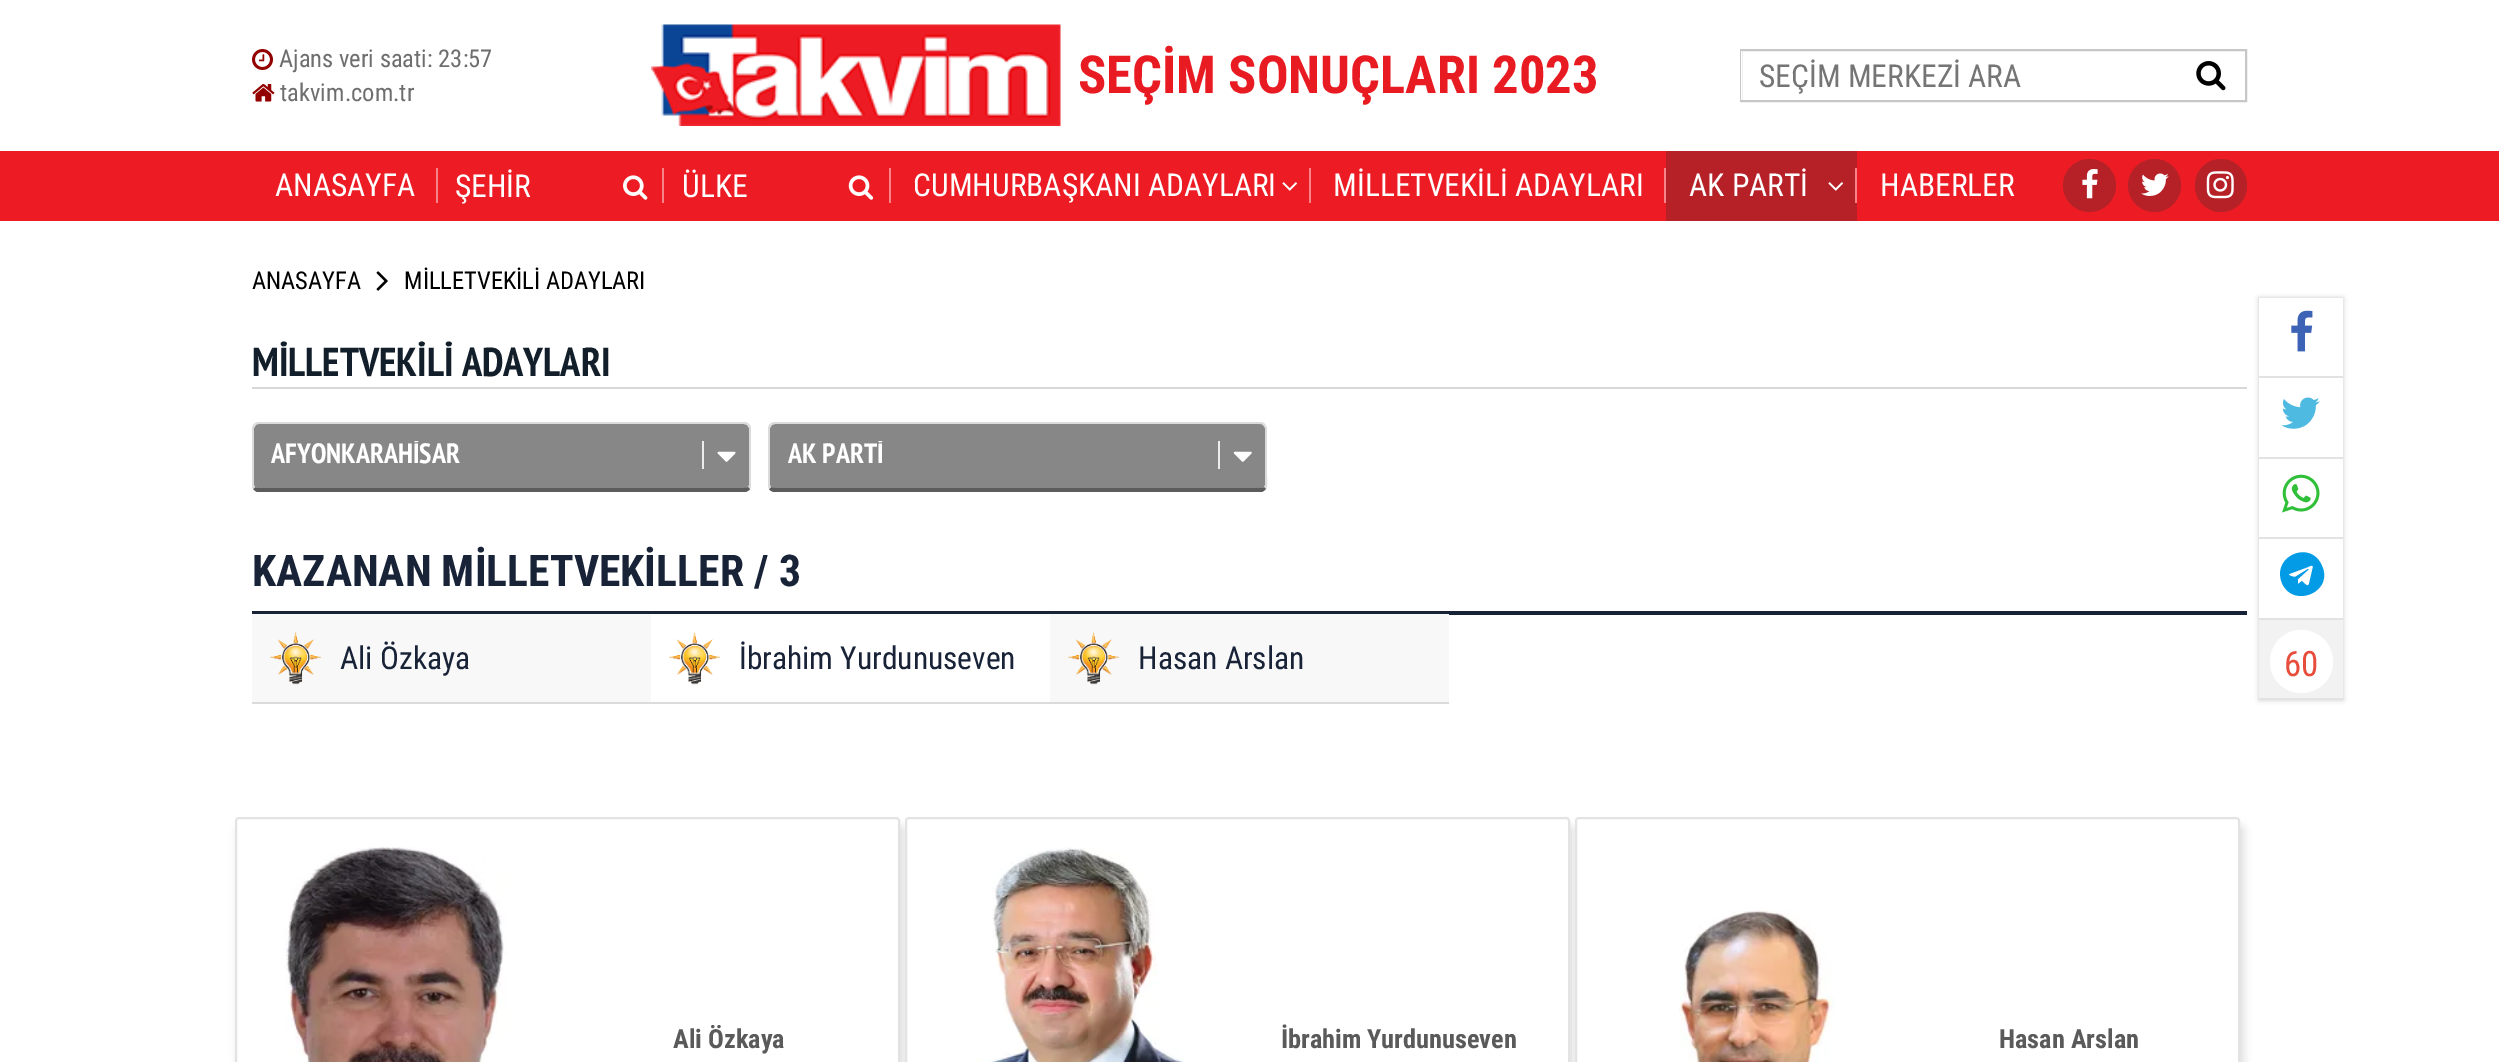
%!PS
<< /PageSize [2499 1062] /PageUsesTransparency true >> setpagedevice
/alpha { dup .setfillconstantalpha .setstrokeconstantalpha } def
/roundrect { 5 dict begin { /r /h /w /y /x } { exch def } forall
  x r add y moveto x w add y 2 copy h add r arct x w add y h add x 1 index r arct
  x y h add x y r arct x y 2 copy exch w add exch r arct closepath end } def
/shadow { 12 dict begin { /a /b /q /h /w /y /x } { exch def } forall gsave /was 0 def
  9 -2 -9 { dup b mul 4 div /e exch def 1 sub .425 mul 2.718 exch exp 1 add a .99 .min exch div /now exch def
    1 1 now sub 1 was sub div sub alpha /was now def
    w h .min e 2 mul add 0 gt { x e sub y e sub w e 2 mul add h e 2 mul add
      q e add b .6 mul add w h .min 2 div e add .min 0 .max roundrect fill } if } for grestore end } def
/picture { 5 dict begin { /h /w /y /x /name } { exch def } forall
  gsave x y translate w h scale
  w h 8 [w 0 0 h 0 0] name (r) file false 3 colorimage grestore end } def
0 .pushpdf14devicefilter
0 1062 translate 1 -1 scale
4 setmiterlimit
1 setgray
0 0 2499 1062 rectfill
(img1.rgb) 252 49 21 21 picture
/RobotoCondensed-Regular [24.5 0 0 -24.5 0 0] selectfont
0.431 setgray
279 67 moveto (Ajans veri saati: 23:57) show
(img2.rgb) 252 84 23 18 picture
280 101 moveto (takvim.com.tr) show
(img3.rgb) 651 24 410 102 picture
/RobotoCondensed-Bold [52.5 0 0 -52.5 0 0] selectfont
0.91 0.106 0.137 setrgbcolor
1078 93 moveto (SEÇİM SONUÇLARI 2023) show
0.78 setgray
2 setlinewidth
1741 50 505 51 rectstroke
1 setgray
1741 51 1 49 rectfill
/RobotoCondensed-Regular [31.5 0 0 -31.5 0 0] selectfont
0.459 setgray
1759 87 moveto (SEÇİM MERKEZİ ARA) show
(img4.rgb) 2196 61 30 30 picture
0.929 0.11 0.141 setrgbcolor
0 151 2499 70 rectfill
1 setgray
275 196 moveto (ANASAYFA) show
0.961 0.514 0.529 setrgbcolor
436 168 2 35 rectfill
1 setgray
455 197 moveto (ŞEHİR) show
(img5.rgb) 623 175 25 25 picture
0.961 0.514 0.529 setrgbcolor
662 168 2 35 rectfill
1 setgray
682 197 moveto (ÜLKE) show
(img6.rgb) 848 175 26 25 picture
0.961 0.514 0.529 setrgbcolor
889 168 2 35 rectfill
1 setgray
913 196 moveto (CUMHURBAŞKANI ADAYLARI) show
(img7.rgb) 1282 182 15 9 picture
0.961 0.514 0.529 setrgbcolor
1309 168 2 35 rectfill
1 setgray
1333 196 moveto (MİLLETVEKİLİ ADAYLARI) show
0.961 0.514 0.529 setrgbcolor
1664 168 2 35 rectfill
0.71 0.129 0.149 setrgbcolor
1666 151 191 70 rectfill
1 setgray
1689 196 moveto (AK PARTİ) show
(img8.rgb) 1828 182 15 9 picture
0.961 0.514 0.529 setrgbcolor
1855 168 2 35 rectfill
1 setgray
1880 196 moveto (HABERLER) show
0.71 0.129 0.149 setrgbcolor
newpath 2089.5 185.5 26.5 0 360 arc closepath fill
(img9.rgb) 2082 169 16 30 picture
newpath 2154.5 185.5 26.5 0 360 arc closepath fill
(img10.rgb) 2141 173 28 23 picture
2195 159 52 53 26 roundrect fill
(img11.rgb) 2206 171 28 28 picture
/RobotoCondensed-Regular [24.5 0 0 -24.5 0 0] selectfont
0 setgray
252 289 moveto (ANASAYFA) show
(img12.rgb) 376 271 12 20 picture
404 289 moveto (MİLLETVEKİLİ ADAYLARI) show
0.843 setgray
252 387 1995 2 rectfill
/PTSansNarrow-Bold [40.25 0 0 -40.25 0 0] selectfont
0.071 0.118 0.165 setrgbcolor
252 376 moveto (MİLLETVEKİLİ ADAYLARI) show
0.529 setgray
newpath 259 424 moveto 744 424 lineto 747 424 749 426 749 429 curveto 749 485 lineto 749 487 747 488 744 488 curveto 259 488 lineto 256 488 254 487 254 485 curveto 254 429 lineto 254 426 256 424 259 424 curveto closepath fill
0.859 setgray
newpath 259 422 moveto 257 422 255 423 254 424 curveto 256 425 lineto 256 424 258 424 259 424 curveto 744 424 lineto 747 425 lineto 749 424 lineto 748 423 746 422 744 422 curveto closepath fill
newpath 749 424 moveto 751 427 lineto 751 487 lineto 750 489 lineto 748 487 lineto 749 485 lineto 749 428 lineto 747 425 lineto closepath fill
0.361 setgray
newpath 257 492 moveto 255 491 254 490 253 489 curveto 255 487 lineto 255 488 257 488 259 488 curveto 744 488 lineto 746 488 747 488 748 487 curveto 750 489 lineto 749 491 747 491 746 492 curveto closepath fill
0.859 setgray
newpath 252 429 moveto 252 485 lineto 252 487 252 488 253 489 curveto 255 487 lineto 254 485 lineto 254 428 lineto 256 425 lineto 254 424 lineto 253 425 252 427 252 429 curveto closepath fill
gsave
271 441 434 32 rectclip
/PTSansNarrow-Bold [28 0 0 -28 0 0] selectfont
1 setgray
271 463 moveto (AFYONKARAHİSAR) show
grestore
0.925 setgray
702 441 2 28 rectfill
(img13.rgb) 717 451 19 11 picture
0.529 setgray
newpath 775 424 moveto 1260 424 lineto 1263 424 1265 426 1265 429 curveto 1265 485 lineto 1265 487 1263 488 1260 488 curveto 775 488 lineto 772 488 770 487 770 485 curveto 770 429 lineto 770 426 772 424 775 424 curveto closepath fill
0.859 setgray
newpath 775 422 moveto 773 422 771 423 770 424 curveto 772 425 lineto 775 424 lineto 1260 424 lineto 1261 424 1263 424 1263 425 curveto 1265 424 lineto 1264 423 1262 422 1260 422 curveto closepath fill
newpath 1265 424 moveto 1267 428 lineto 1267 476 lineto 1267 479 1268 486 1266 489 curveto 1264 487 lineto 1265 485 lineto 1265 428 lineto 1263 425 lineto closepath fill
0.361 setgray
newpath 773 492 moveto 772 491 770 491 769 489 curveto 771 487 lineto 772 488 773 488 775 488 curveto 1260 488 lineto 1262 488 1264 488 1264 487 curveto 1266 489 lineto 1265 490 1264 491 1262 492 curveto closepath fill
0.859 setgray
newpath 768 427 moveto 770 424 lineto 772 425 lineto 770 428 lineto 770 485 lineto 771 487 lineto 769 489 lineto 768 487 lineto closepath fill
gsave
788 441 434 32 rectclip
/PTSansNarrow-Bold [28 0 0 -28 0 0] selectfont
1 setgray
788 463 moveto (AK PARTİ) show
grestore
0.925 setgray
1218 441 2 28 rectfill
(img14.rgb) 1233 451 19 11 picture
/RobotoCondensed-Bold [43.75 0 0 -43.75 0 0] selectfont
0.094 0.137 0.22 setrgbcolor
252 586 moveto (KAZANAN MİLLETVEKİLLER / 3) show
252 611 1995 4 rectfill
0.973 setgray
252 614 399 88 rectfill
0.859 setgray
252 702 1197 2 rectfill
(img15.rgb) 270 632 52 53 picture
/RobotoCondensed-Regular [31.5 0 0 -31.5 0 0] selectfont
0.094 0.137 0.22 setrgbcolor
340 669 moveto (Ali Özkaya) show
1 setgray
651 614 399 1 rectfill
(img16.rgb) 669 632 52 53 picture
0.094 0.137 0.22 setrgbcolor
739 669 moveto (İbrahim Yurdunuseven) show
0.973 setgray
1050 614 399 88 rectfill
(img15.rgb) 1068 632 52 53 picture
0.094 0.137 0.22 setrgbcolor
1138 669 moveto (Hasan Arslan) show
0 setgray
238 826 665 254 4 4.5 0.12 shadow
1 setgray
236 818 663 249 3 roundrect gsave fill grestore
0.89 setgray
stroke
(img17.rgb) 285 847 222 215 picture
/RobotoCondensed-Bold [26.25 0 0 -26.25 0 0] selectfont
0.353 setgray
673 1048 moveto (Ali Özkaya) show
0 setgray
908 826 665 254 4 4.5 0.12 shadow
1 setgray
906 818 663 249 3 roundrect gsave fill grestore
0.89 setgray
stroke
(img18.rgb) 976 847 208 215 picture
0.353 setgray
1281 1048 moveto (İbrahim Yurdunuseven) show
0 setgray
1579 826 665 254 4 4.5 0.12 shadow
1 setgray
1576 818 663 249 3 roundrect gsave fill grestore
0.89 setgray
stroke
(img19.rgb) 1679 910 156 152 picture
0.353 setgray
1999 1048 moveto (Hasan Arslan) show
0 setgray
2259 298 84 402 0 2.5 0.2 shadow
1 setgray
2259 298 84 78 rectfill
0.886 setgray
2259 376 84 2 rectfill
(img20.rgb) 2291 310 22 42 picture
1 setgray
2259 378 84 79 rectfill
0.886 setgray
2259 457 84 2 rectfill
(img21.rgb) 2281 397 39 32 picture
1 setgray
2259 459 84 78 rectfill
0.886 setgray
2259 537 84 2 rectfill
(img22.rgb) 2282 474 38 39 picture
1 setgray
2259 539 84 79 rectfill
0.886 setgray
2259 618 84 2 rectfill
0.012 0.608 0.898 setrgbcolor
newpath 2309 584 moveto 2313 567 lineto 2313 564 2308 567 2308 567 curveto 2289 574 lineto 2288 576 2295 577 2295 577 curveto 2308 569 lineto 2308 569 2309 569 2309 569 curveto 2298 579 lineto 2298 584 lineto 2302 581 lineto 2303 582 2308 588 2309 584 curveto closepath 2322 566 moveto 2334 592 2293 609 2282 583 curveto 2271 556 2311 539 2322 566 curveto closepath fill
0.949 setgray
2259 620 84 78 rectfill
0.886 setgray
2259 698 84 2 rectfill
1 setgray
newpath 2270 662 moveto 2270 644 2284 630 2301 630 curveto 2319 630 2333 644 2333 662 curveto 2333 679 2319 693 2301 693 curveto 2284 693 2270 679 2270 662 curveto closepath fill
/RobotoCondensed-Regular [35 0 0 -35 0 0] selectfont
0.906 0.298 0.235 setrgbcolor
2284 676 moveto (60) show
.poppdf14devicefilter showpage
